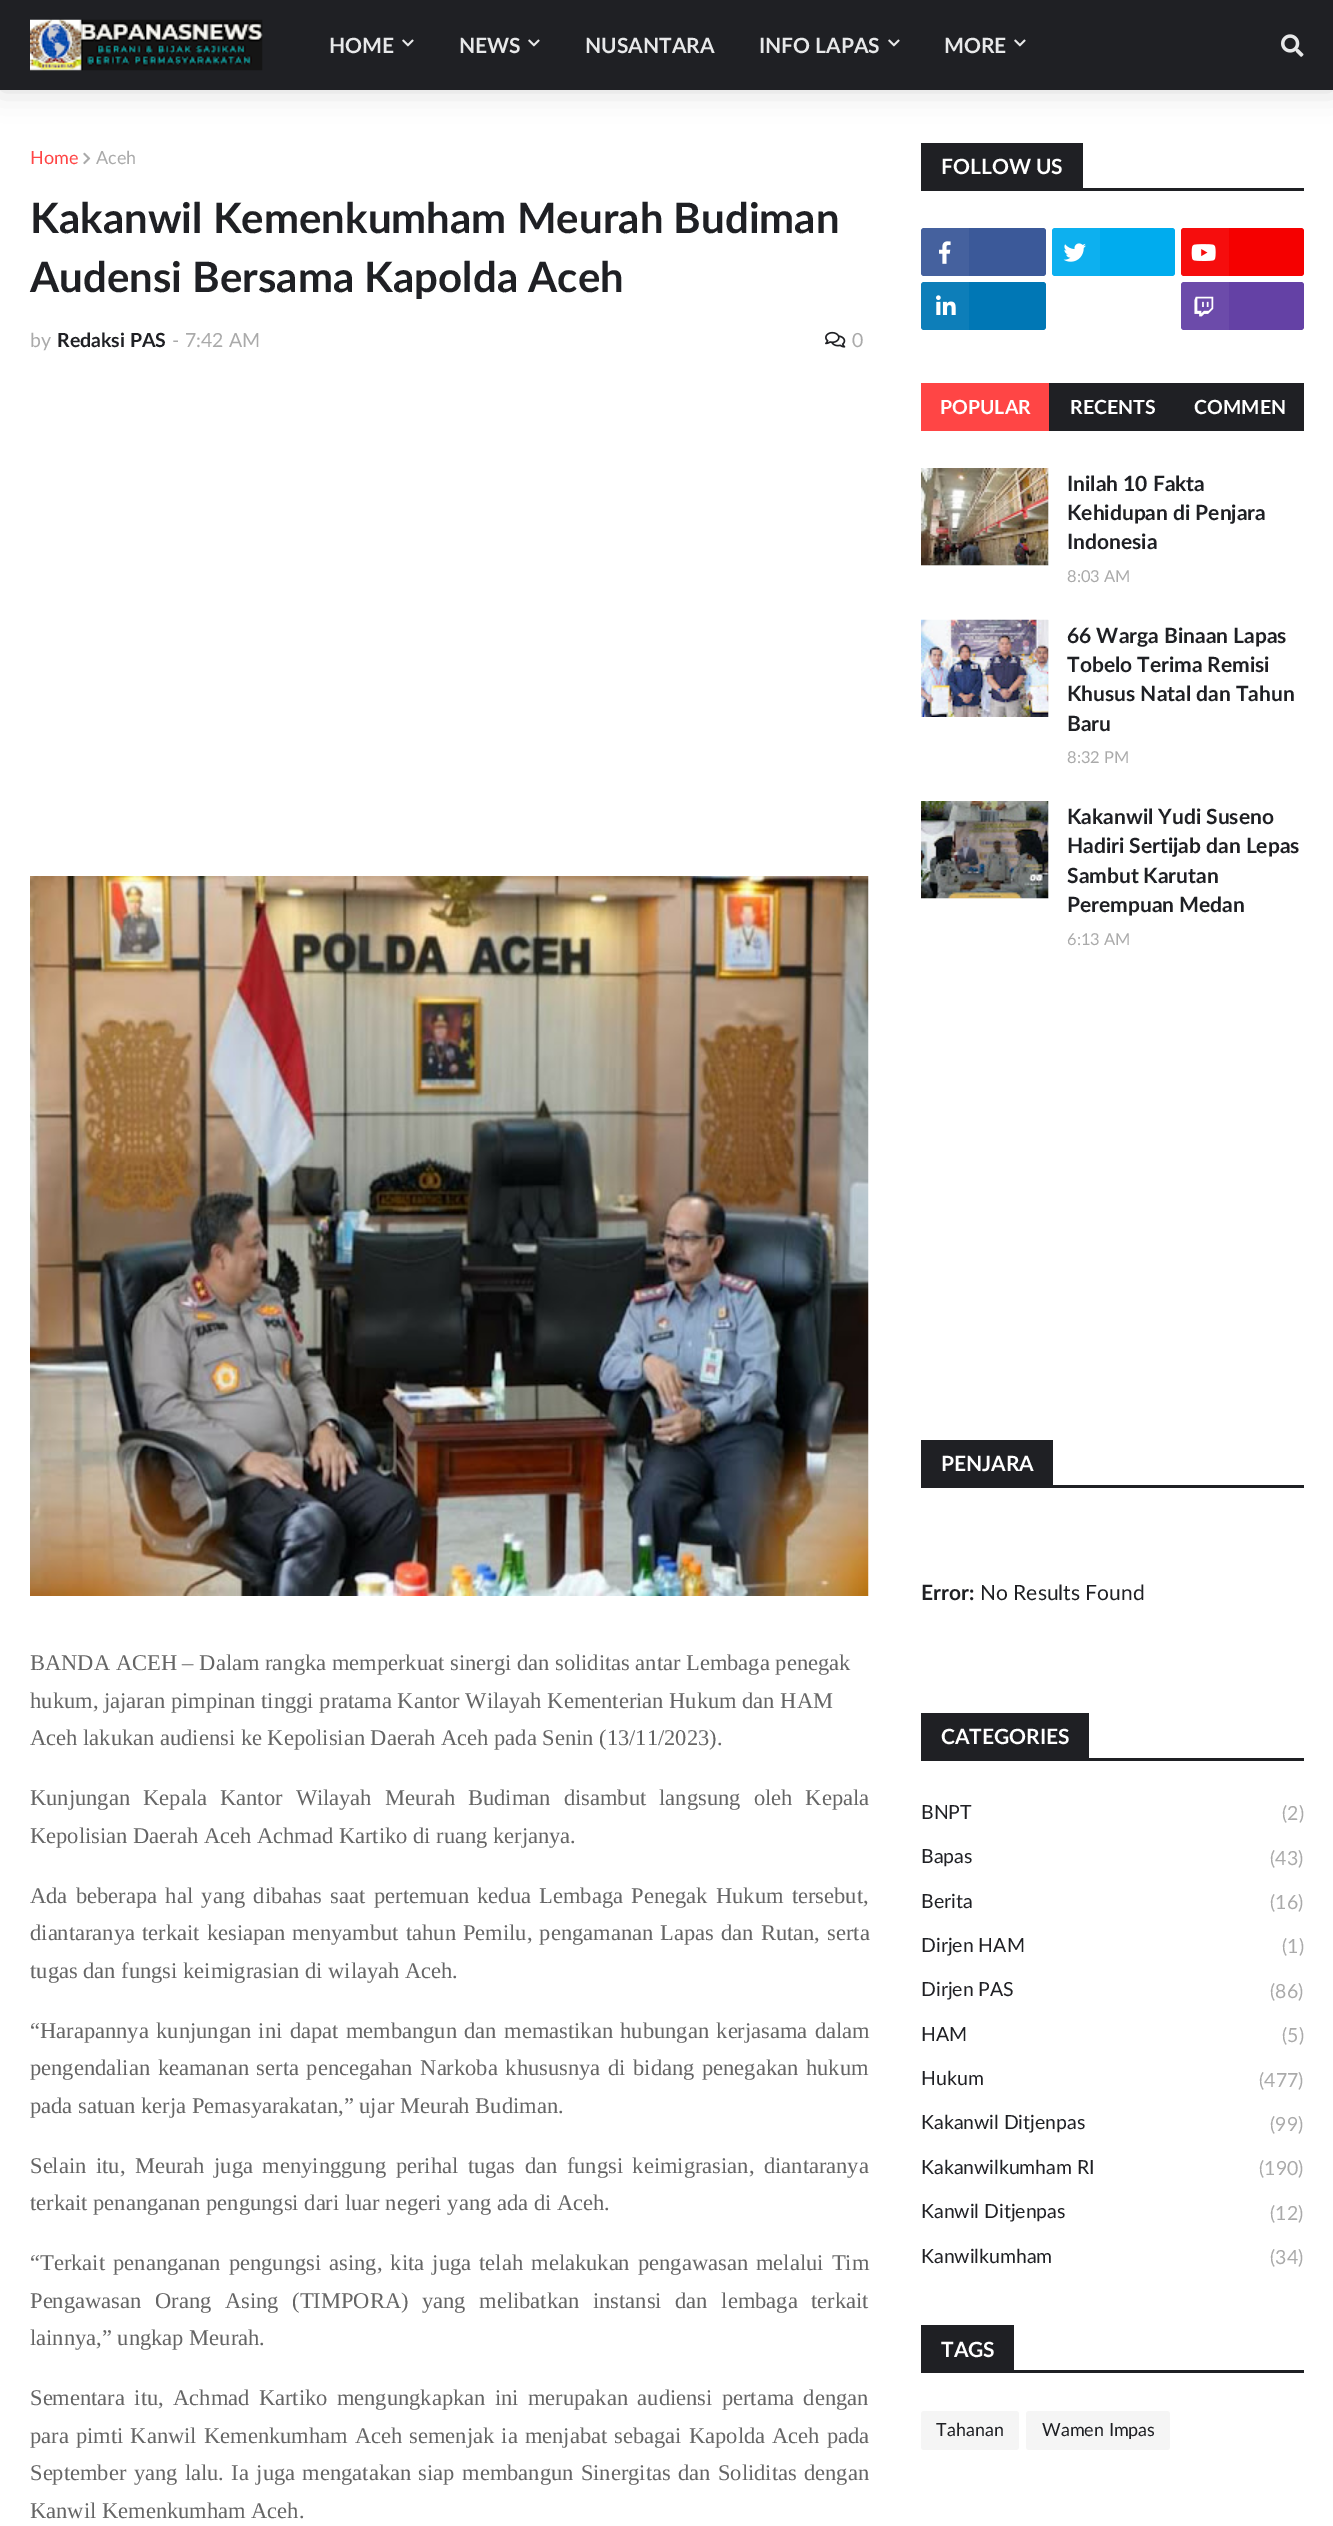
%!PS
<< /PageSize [1333 2526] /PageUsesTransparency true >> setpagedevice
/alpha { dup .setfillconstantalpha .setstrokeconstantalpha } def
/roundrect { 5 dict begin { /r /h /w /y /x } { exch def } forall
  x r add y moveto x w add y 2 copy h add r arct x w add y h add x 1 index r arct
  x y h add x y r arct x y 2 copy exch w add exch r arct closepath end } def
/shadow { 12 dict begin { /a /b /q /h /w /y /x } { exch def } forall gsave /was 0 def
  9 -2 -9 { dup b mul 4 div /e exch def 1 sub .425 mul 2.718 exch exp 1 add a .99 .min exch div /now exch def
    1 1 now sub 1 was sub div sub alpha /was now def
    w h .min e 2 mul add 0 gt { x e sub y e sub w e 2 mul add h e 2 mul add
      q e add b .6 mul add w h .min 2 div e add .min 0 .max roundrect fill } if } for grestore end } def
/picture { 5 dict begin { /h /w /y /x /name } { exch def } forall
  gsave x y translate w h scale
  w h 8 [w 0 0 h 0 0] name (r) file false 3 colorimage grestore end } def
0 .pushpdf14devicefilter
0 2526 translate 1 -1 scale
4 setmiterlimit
1 setgray
0 0 1333 2526 rectfill
0 setgray
0 0 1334 90 0 15 0.15 shadow
0.122 0.125 0.141 setrgbcolor
0 0 1333 90 rectfill
(img1.rgb) 30 19 233 52 picture
/Lato-Bold [21 0 0 -21 0 0] selectfont
0.906 0.91 0.914 setrgbcolor
329 53 moveto (HOME) show
(img2.rgb) 402 39 12 8 picture
459 53 moveto (NEWS) show
(img2.rgb) 528 39 12 8 picture
585 53 moveto (NUSANTARA) show
759 53 moveto (INFO LAPAS) show
(img2.rgb) 888 39 12 8 picture
944 53 moveto (MORE) show
(img2.rgb) 1014 39 12 8 picture
(img3.rgb) 1281 34 23 23 picture
/Lato-Regular [18 0 0 -18 0 0] selectfont
1 0.271 0.271 setrgbcolor
30 164 moveto (Home) show
(img4.rgb) 83 152 8 13 picture
0.667 setgray
96 164 moveto (Aceh) show
/Lato-Bold [42 0 0 -42 0 0] selectfont
0.122 0.125 0.141 setrgbcolor
30 233 moveto (Kakanwil Kemenkumham Meurah Budiman) show
30 292 moveto (Audensi Bersama Kapolda Aceh) show
/Lato-Regular [19.5 0 0 -19.5 0 0] selectfont
0.667 setgray
30 347 moveto (by) show
/Lato-Bold [19.5 0 0 -19.5 0 0] selectfont
0.122 0.125 0.141 setrgbcolor
57 347 moveto (Redaksi PAS) show
/Lato-Regular [19.5 0 0 -19.5 0 0] selectfont
0.667 setgray
172 347 moveto (-) show
185 347 moveto (7:42 AM) show
(img5.rgb) 825 331 21 17 picture
852 347 moveto (0) show
(img6.rgb) 30 876 839 720 picture
/LiberationSerif-Regular [22.5 0 0 -22.5 0 0] selectfont
0.396 setgray
30 1670 moveto (BANDA ACEH – Dalam rangka memperkuat sinergi dan soliditas antar Lembaga penegak) show
30 1708 moveto (hukum, jajaran pimpinan tinggi pratama Kantor Wilayah Kementerian Hukum dan HAM) show
30 1745 moveto (Aceh lakukan audiensi ke Kepolisian Daerah Aceh pada Senin \(13/11/2023\).) show
30 1805 moveto 7.5 0 32 (Kunjungan Kepala Kantor Wilayah Meurah Budiman disambut langsung oleh Kepala) widthshow
30 1843 moveto (Kepolisian Daerah Aceh Achmad Kartiko di ruang kerjanya.) show
30 1903 moveto 2.75 0 32 (Ada beberapa hal yang dibahas saat pertemuan kedua Lembaga Penegak Hukum tersebut,) widthshow
30 1940 moveto 1.5 0 32 (diantaranya terkait kesiapan menyambut tahun Pemilu, pengamanan Lapas dan Rutan, serta) widthshow
30 1978 moveto (tugas dan fungsi keimigrasian di wilayah Aceh.) show
30 2038 moveto 1.75 0 32 (“Harapannya kunjungan ini dapat membangun dan memastikan hubungan kerjasama dalam) widthshow
30 2075 moveto 2 0 32 (pengendalian keamanan serta pencegahan Narkoba khususnya di bidang penegakan hukum) widthshow
30 2113 moveto (pada satuan kerja Pemasyarakatan,” ujar Meurah Budiman.) show
30 2173 moveto 3.9 0 32 (Selain itu, Meurah juga menyinggung perihal tugas dan fungsi keimigrasian, diantaranya) widthshow
30 2210 moveto (terkait penanganan pengungsi dari luar negeri yang ada di Aceh.) show
30 2270 moveto 2.5 0 32 (“Terkait penanganan pengungsi asing, kita juga telah melakukan pengawasan melalui Tim) widthshow
30 2308 moveto 8 0 32 (Pengawasan Orang Asing \(TIMPORA\) yang melibatkan instansi dan lembaga terkait) widthshow
30 2345 moveto (lainnya,” ungkap Meurah.) show
30 2405 moveto 3.75 0 32 (Sementara itu, Achmad Kartiko mengungkapkan ini merupakan audiensi pertama dengan) widthshow
30 2443 moveto 1.5 0 32 (para pimti Kanwil Kemenkumham Aceh semenjak ia menjabat sebagai Kapolda Aceh pada) widthshow
30 2480 moveto 1.75 0 32 (September yang lalu. Ia juga mengatakan siap membangun Sinergitas dan Soliditas dengan) widthshow
30 2518 moveto (Kanwil Kemenkumham Aceh.) show
0.122 0.125 0.141 setrgbcolor
921 188 383 3 rectfill
921 143 162 45 rectfill
/Lato-Bold [21 0 0 -21 0 0] selectfont
1 setgray
941 174 moveto (FOLLOW US) show
0.231 0.349 0.6 setrgbcolor
921 228 125 48 3 roundrect fill
0.05 alpha
1 setgray
921 228 48 48 rectfill
1 alpha
(img7.rgb) 939 241 12 23 picture
0 0.675 0.933 setrgbcolor
1052 228 123 48 3 roundrect fill
0.05 alpha
1 setgray
1052 228 48 48 rectfill
1 alpha
(img8.rgb) 1063 243 23 19 picture
0.961 0 0 setrgbcolor
1181 228 123 48 3 roundrect fill
0.05 alpha
1 setgray
1181 228 48 48 rectfill
1 alpha
(img9.rgb) 1191 244 25 17 picture
0 0.467 0.71 setrgbcolor
921 282 125 48 3 roundrect fill
0.05 alpha
1 setgray
921 282 48 48 rectfill
1 alpha
(img10.rgb) 936 295 20 20 picture
0.392 0.255 0.647 setrgbcolor
1181 282 123 48 3 roundrect fill
0.05 alpha
1 setgray
1181 282 48 48 rectfill
1 alpha
(img11.rgb) 1194 296 20 21 picture
0.122 0.125 0.141 setrgbcolor
1049 383 255 48 rectfill
1 0.271 0.271 setrgbcolor
921 383 128 48 rectfill
/Lato-Bold [19.5 0 0 -19.5 0 0] selectfont
1 setgray
940 414 moveto (POPULAR) show
1070 414 moveto (RECENTS) show
1194 414 moveto (COMMEN) show
0.969 setgray
921 468 128 98 rectfill
(img12.rgb) 921 468 128 98 picture
/Lato-Bold [21 0 0 -21 0 0] selectfont
0.122 0.125 0.141 setrgbcolor
1067 491 moveto (Inilah 10 Fakta) show
1067 520 moveto (Kehidupan di Penjara) show
1067 549 moveto (Indonesia) show
/Lato-Regular [16.5 0 0 -16.5 0 0] selectfont
0.667 setgray
1067 582 moveto (8:03 AM) show
0.969 setgray
1048 620 1 97 rectfill
(img13.rgb) 921 619 128 98 picture
/Lato-Bold [21 0 0 -21 0 0] selectfont
0.122 0.125 0.141 setrgbcolor
1067 643 moveto (66 Warga Binaan Lapas) show
1067 672 moveto (Tobelo Terima Remisi) show
1067 701 moveto (Khusus Natal dan Tahun) show
1067 731 moveto (Baru) show
/Lato-Regular [16.5 0 0 -16.5 0 0] selectfont
0.667 setgray
1067 763 moveto (8:32 PM) show
0.969 setgray
921 801 128 98 rectfill
(img14.rgb) 921 801 128 98 picture
/Lato-Bold [21 0 0 -21 0 0] selectfont
0.122 0.125 0.141 setrgbcolor
1067 824 moveto (Kakanwil Yudi Suseno) show
1067 853 moveto (Hadiri Sertijab dan Lepas) show
1067 883 moveto (Sambut Karutan) show
1067 912 moveto (Perempuan Medan) show
/Lato-Regular [16.5 0 0 -16.5 0 0] selectfont
0.667 setgray
1067 945 moveto (6:13 AM) show
0.122 0.125 0.141 setrgbcolor
921 1485 383 3 rectfill
921 1440 132 45 rectfill
/Lato-Bold [21 0 0 -21 0 0] selectfont
1 setgray
941 1471 moveto (PENJARA) show
0.122 0.125 0.141 setrgbcolor
921 1600 moveto (Error:) show
/Lato-Regular [21 0 0 -21 0 0] selectfont
980 1600 moveto (No Results Found) show
921 1758 383 3 rectfill
921 1713 168 45 rectfill
/Lato-Bold [21 0 0 -21 0 0] selectfont
1 setgray
941 1744 moveto (CATEGORIES) show
/Lato-Regular [19.5 0 0 -19.5 0 0] selectfont
0.122 0.125 0.141 setrgbcolor
921 1819 moveto (BNPT) show
0.667 setgray
1282 1820 moveto (\(2\)) show
0.122 0.125 0.141 setrgbcolor
921 1863 moveto (Bapas) show
0.667 setgray
1270 1865 moveto (\(43\)) show
0.122 0.125 0.141 setrgbcolor
921 1908 moveto (Berita) show
0.667 setgray
1270 1909 moveto (\(16\)) show
0.122 0.125 0.141 setrgbcolor
921 1952 moveto (Dirjen HAM) show
0.667 setgray
1282 1953 moveto (\(1\)) show
0.122 0.125 0.141 setrgbcolor
921 1996 moveto (Dirjen PAS) show
0.667 setgray
1270 1998 moveto (\(86\)) show
0.122 0.125 0.141 setrgbcolor
921 2041 moveto (HAM) show
0.667 setgray
1282 2042 moveto (\(5\)) show
0.122 0.125 0.141 setrgbcolor
921 2085 moveto (Hukum) show
0.667 setgray
1259 2087 moveto (\(477\)) show
0.122 0.125 0.141 setrgbcolor
921 2129 moveto (Kakanwil Ditjenpas) show
0.667 setgray
1270 2131 moveto (\(99\)) show
0.122 0.125 0.141 setrgbcolor
921 2174 moveto (Kakanwilkumham RI) show
0.667 setgray
1259 2175 moveto (\(190\)) show
0.122 0.125 0.141 setrgbcolor
921 2218 moveto (Kanwil Ditjenpas) show
0.667 setgray
1270 2220 moveto (\(12\)) show
0.122 0.125 0.141 setrgbcolor
921 2263 moveto (Kanwilkumham) show
0.667 setgray
1270 2264 moveto (\(34\)) show
0.122 0.125 0.141 setrgbcolor
921 2370 383 3 rectfill
921 2325 93 45 rectfill
/Lato-Bold [21 0 0 -21 0 0] selectfont
1 setgray
941 2357 moveto (TAGS) show
0.961 setgray
921 2411 98 39 3 roundrect fill
/Lato-Regular [18 0 0 -18 0 0] selectfont
0.122 0.125 0.141 setrgbcolor
936 2436 moveto (Tahanan) show
0.961 setgray
1026 2411 144 39 3 roundrect fill
0.122 0.125 0.141 setrgbcolor
1042 2436 moveto (Wamen Impas) show
.poppdf14devicefilter showpage
